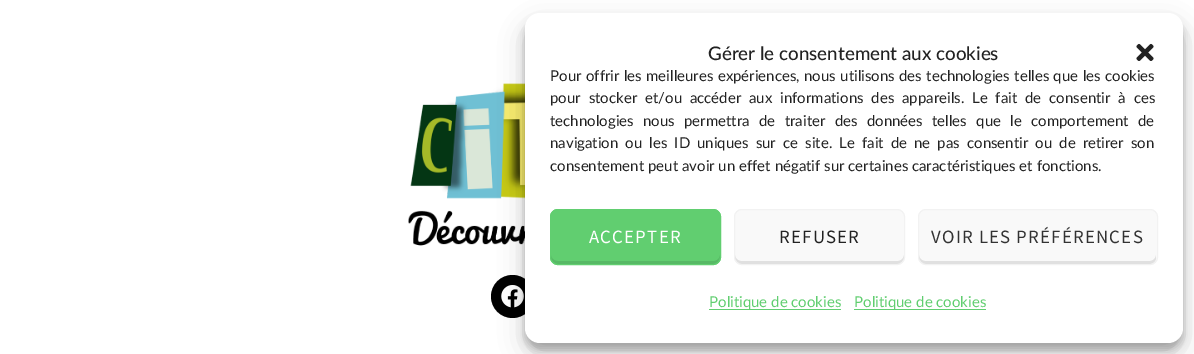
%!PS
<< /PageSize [1194 354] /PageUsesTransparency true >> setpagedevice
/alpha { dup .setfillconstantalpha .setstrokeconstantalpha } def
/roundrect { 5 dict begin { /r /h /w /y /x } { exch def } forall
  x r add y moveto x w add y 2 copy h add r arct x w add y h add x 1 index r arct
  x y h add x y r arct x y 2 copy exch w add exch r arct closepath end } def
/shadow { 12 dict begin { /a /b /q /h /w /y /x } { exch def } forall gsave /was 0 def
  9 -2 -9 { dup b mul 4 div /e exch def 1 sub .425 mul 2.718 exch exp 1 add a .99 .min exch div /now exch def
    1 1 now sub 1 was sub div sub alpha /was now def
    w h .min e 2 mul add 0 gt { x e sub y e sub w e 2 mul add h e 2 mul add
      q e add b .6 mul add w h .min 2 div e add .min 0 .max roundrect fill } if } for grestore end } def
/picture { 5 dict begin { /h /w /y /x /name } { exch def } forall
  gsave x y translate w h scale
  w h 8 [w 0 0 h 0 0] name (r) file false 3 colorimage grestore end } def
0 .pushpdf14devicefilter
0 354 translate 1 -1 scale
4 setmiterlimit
1 setgray
0 0 1194 354 rectfill
(img1.rgb) 408 83 117 163 picture
0 setgray
newpath 512.5 296.5 21.5 0 360 arc closepath fill
(img2.rgb) 501 285 23 23 picture
525 20 658 330 15 4 0.23 shadow
525 25 658 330 15 12.5 0.19 shadow
1 setgray
525 13 658 330 15 roundrect fill
/Lato-Medium [18.75 0 0 -18.75 0 0] selectfont
0.133 setgray
708 60 moveto (Gérer le consentement aux cookies) show
(img3.rgb) 1136 43 18 18 picture
/Lato-Regular [15 0 0 -15 0 0] selectfont
550 81 moveto 0.6 0 32 (Pour offrir les meilleures expériences, nous utilisons des technologies telles que les cookies) widthshow
550 103 moveto 4 0 32 (pour stocker et/ou accéder aux informations des appareils. Le fait de consentir à ces) widthshow
550 126 moveto 5.5 0 32 (technologies nous permettra de traiter des données telles que le comportement de) widthshow
550 148 moveto 3.25 0 32 (navigation ou les ID uniques sur ce site. Le fait de ne pas consentir ou de retirer son) widthshow
550 171 moveto (consentement peut avoir un effet négatif sur certaines caractéristiques et fonctions.) show
0.38 0.808 0.439 setrgbcolor
550 209 171 56 8 roundrect fill
0.341 0.725 0.396 setrgbcolor
newpath 551 255 moveto 551 258 lineto 551 261 554 264 557 264 curveto 714 264 lineto 717 264 720 261 720 258 curveto 720 255 lineto 720 258 717 261 714 261 curveto 558 261 lineto 554 261 551 258 551 255 curveto closepath fill
0.38 0.808 0.439 setrgbcolor
550.5 209.5 170 55 7.5 roundrect stroke
/SourceSansPro-Regular [18.75 0 0 -18.75 0 0] selectfont
1 setgray
589 243 moveto 1.25 0 (ACCEPTER) ashow
0.976 setgray
734 209 171 56 8 roundrect fill
0.878 setgray
newpath 735 255 moveto 735 258 lineto 735 261 738 264 741 264 curveto 898 264 lineto 901 264 904 261 904 258 curveto 904 255 lineto 904 258 901 261 898 261 curveto 741 261 lineto 738 261 735 258 735 255 curveto closepath fill
0.949 setgray
734.5 209.5 170 55 7.5 roundrect stroke
0.133 setgray
779 243 moveto 1.25 0 (REFUSER) ashow
0.976 setgray
918 209 240 56 8 roundrect fill
0.878 setgray
newpath 919 255 moveto 919 258 lineto 919 261 922 264 925 264 curveto 1150 264 lineto 1153 264 1156 261 1156 258 curveto 1156 255 lineto 1156 258 1153 261 1150 261 curveto 925 261 lineto 922 261 919 258 919 255 curveto closepath fill
0.949 setgray
918.5 209.5 239 55 7.5 roundrect stroke
0.2 setgray
931 243 moveto 1.25 0 (VOIR LES PRÉFÉRENCES) ashow
0.38 0.808 0.439 setrgbcolor
709 309 132 1 rectfill
/Lato-Regular [15 0 0 -15 0 0] selectfont
709 307 moveto (Politique de cookies) show
854 309 132 1 rectfill
854 307 moveto (Politique de cookies) show
.poppdf14devicefilter showpage
